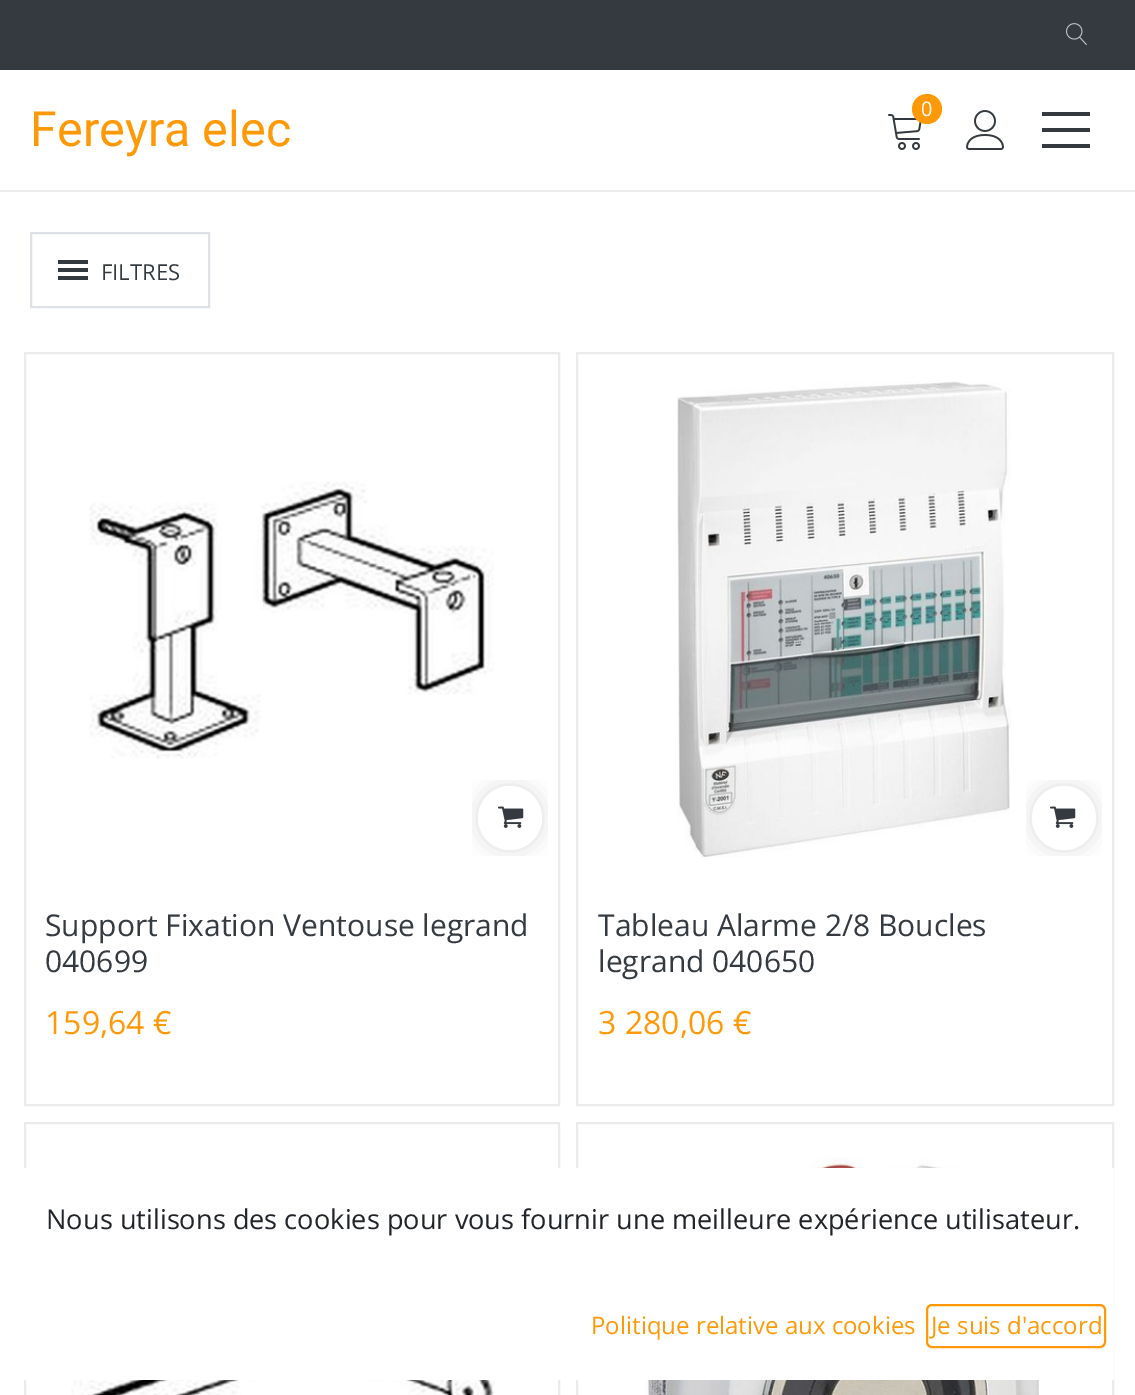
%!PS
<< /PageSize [1135 1395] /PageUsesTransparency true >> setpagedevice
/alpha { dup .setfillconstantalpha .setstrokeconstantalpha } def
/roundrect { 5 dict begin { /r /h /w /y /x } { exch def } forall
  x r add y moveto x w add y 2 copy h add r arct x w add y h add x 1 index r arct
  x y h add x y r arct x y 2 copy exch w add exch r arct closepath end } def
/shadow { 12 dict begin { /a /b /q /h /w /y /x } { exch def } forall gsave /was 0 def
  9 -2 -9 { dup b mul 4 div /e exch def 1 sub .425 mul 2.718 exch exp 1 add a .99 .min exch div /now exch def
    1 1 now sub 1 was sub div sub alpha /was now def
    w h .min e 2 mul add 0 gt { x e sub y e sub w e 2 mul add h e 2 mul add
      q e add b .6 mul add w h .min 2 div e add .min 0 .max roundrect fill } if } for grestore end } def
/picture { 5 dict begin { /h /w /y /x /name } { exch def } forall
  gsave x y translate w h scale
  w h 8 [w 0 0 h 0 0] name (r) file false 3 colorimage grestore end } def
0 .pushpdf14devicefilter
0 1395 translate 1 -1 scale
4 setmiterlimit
1 setgray
0 0 1135 1395 rectfill
0.204 0.227 0.251 setrgbcolor
0 0 1135 70 rectfill
(img1.rgb) 1066 23 21 23 picture
0.922 0.922 0.925 setrgbcolor
0 190 1135 2 rectfill
/Roboto-Regular [48.5 0 0 -48.5 0 0] selectfont
1 0.6 0.031 setrgbcolor
30 146 moveto (Fereyra elec) show
(img2.rgb) 888 114 34 36 picture
newpath 927 109 15 0 360 arc closepath fill
/OpenSans-Regular [20 0 0 -20 0 0] selectfont
1 setgray
921 116 moveto (0) show
(img3.rgb) 966 110 38 40 picture
0.204 0.227 0.251 setrgbcolor
1042 112 48 4 rectfill
1042 128 48 4 rectfill
1042 144 48 4 rectfill
0.871 0.886 0.902 setrgbcolor
2 setlinewidth
31 233 178 74 rectstroke
0.204 0.227 0.251 setrgbcolor
58 260 30 4 rectfill
58 276 30 4 rectfill
58 268 30 4 rectfill
/OpenSans-Regular [22 0 0 -22 0 0] selectfont
101 280 moveto (FILTRES) show
0.922 setgray
25 353 534 752 rectstroke
(img4.rgb) 89 481 405 278 picture
gsave
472 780 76 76 rectclip
0 setgray
478 786 64 64 32 11 0.14 shadow
grestore
1 setgray
newpath 510 818 32 0 360 arc closepath fill
(img5.rgb) 498 806 26 22 picture
/OpenSans-Regular [30 0 0 -30 0 0] selectfont
0.204 0.227 0.251 setrgbcolor
45 936 moveto (Support Fixation Ventouse legrand) show
45 972 moveto (040699) show
/OpenSans-Regular [32 0 0 -32 0 0] selectfont
1 0.6 0.031 setrgbcolor
45 1034 moveto (159,64 €) show
0.922 setgray
577 353 536 752 rectstroke
(img6.rgb) 677 381 334 477 picture
gsave
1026 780 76 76 rectclip
0 setgray
1032 786 64 64 32 11 0.14 shadow
grestore
1 setgray
newpath 1064 818 32 0 360 arc closepath fill
(img5.rgb) 1050 806 26 22 picture
/OpenSans-Regular [30 0 0 -30 0 0] selectfont
0.204 0.227 0.251 setrgbcolor
598 936 moveto (Tableau Alarme 2/8 Boucles) show
598 972 moveto (legrand 040650) show
/OpenSans-Regular [32 0 0 -32 0 0] selectfont
1 0.6 0.031 setrgbcolor
598 1034 moveto (3 280,06 €) show
0.922 setgray
25 1123 534 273 rectstroke
(img7.rgb) 71 1380 424 15 picture
577 1123 536 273 rectstroke
(img8.rgb) 645 1157 394 238 picture
1 setgray
24 1168 1090 212 rectfill
/OpenSans-Regular [27.2 0 0 -27.2 0 0] selectfont
0.129 0.145 0.161 setrgbcolor
46 1229 moveto (Nous utilisons des cookies pour vous fournir une meilleure expérience utilisateur.) show
/OpenSans-Regular [24 0 0 -24 0 0] selectfont
1 0.6 0.031 setrgbcolor
591 1334 moveto (Politique relative aux cookies) show
927 1305 178 42 5 roundrect stroke
931 1334 moveto (Je suis d'accord) show
.poppdf14devicefilter showpage
